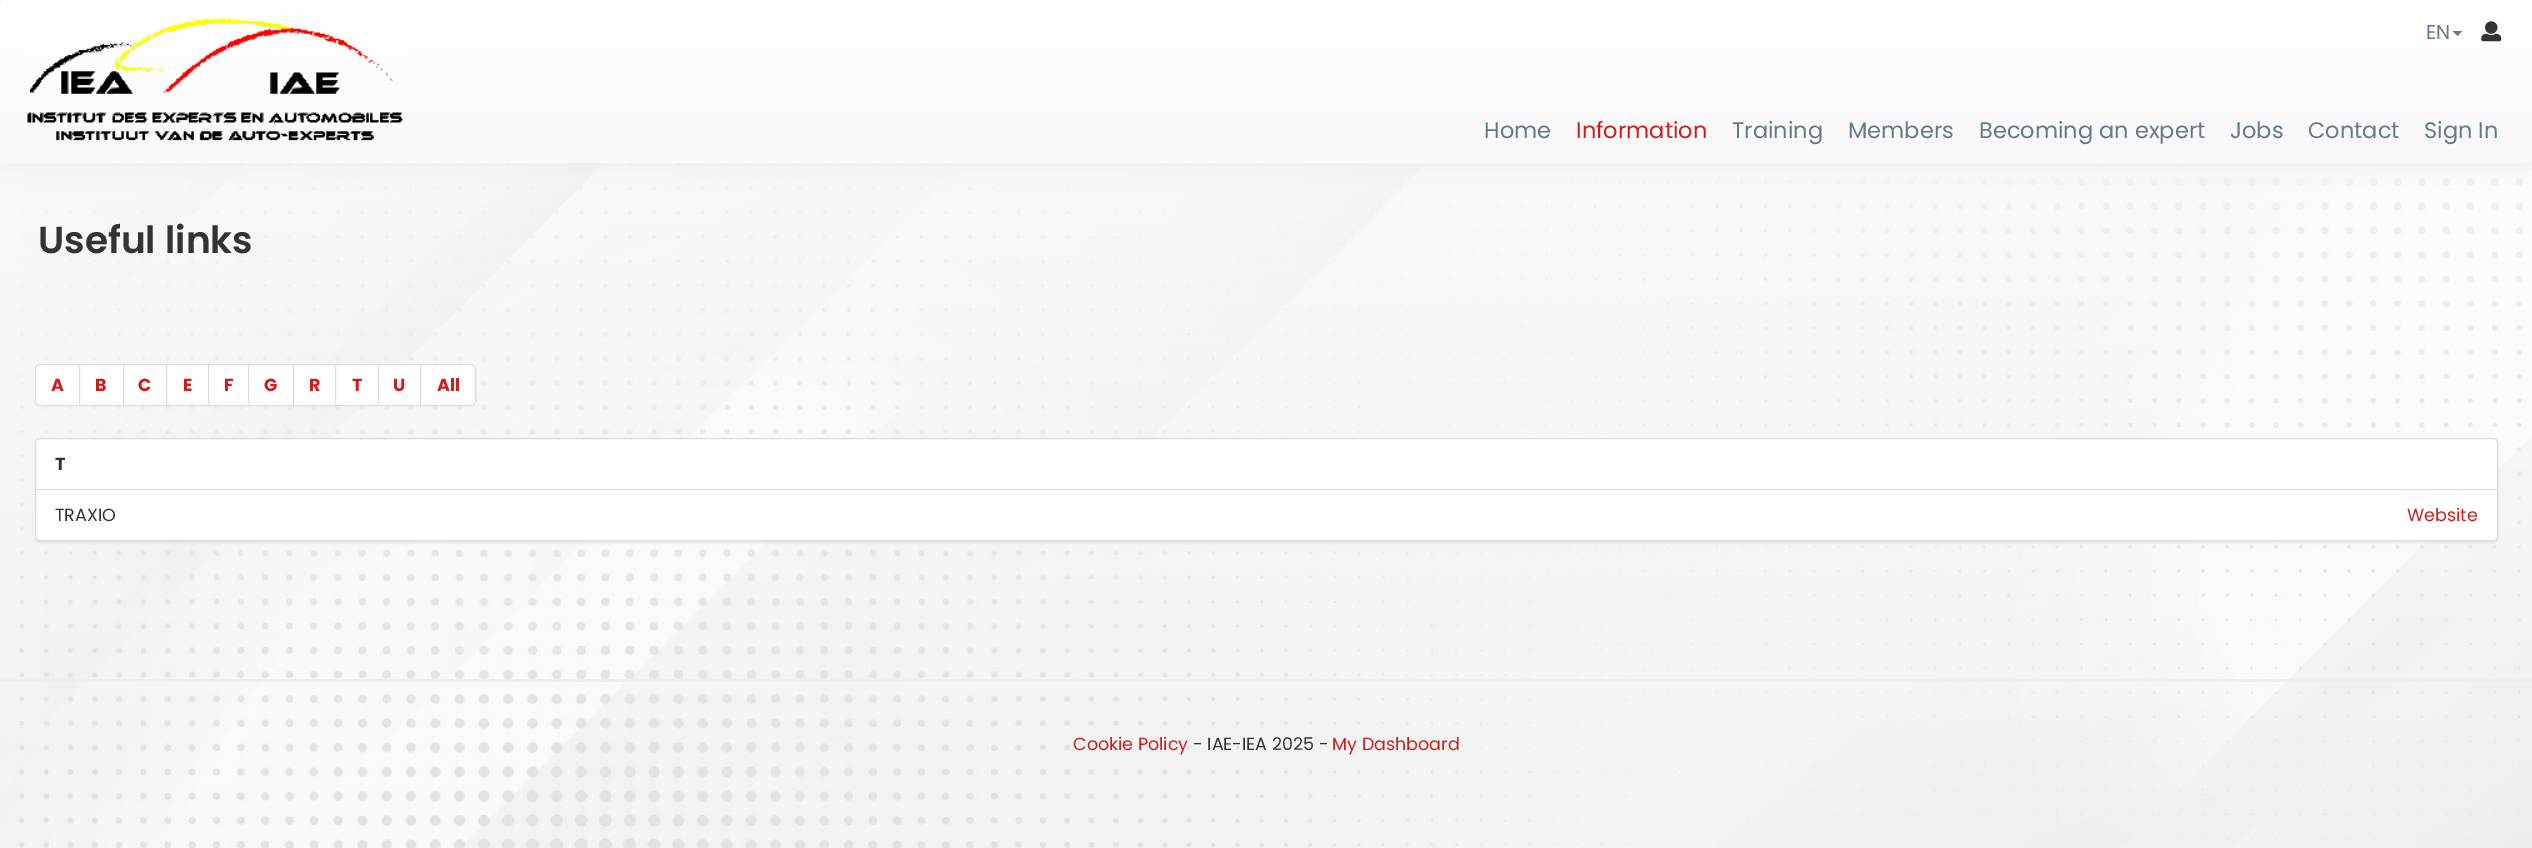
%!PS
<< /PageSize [2532 848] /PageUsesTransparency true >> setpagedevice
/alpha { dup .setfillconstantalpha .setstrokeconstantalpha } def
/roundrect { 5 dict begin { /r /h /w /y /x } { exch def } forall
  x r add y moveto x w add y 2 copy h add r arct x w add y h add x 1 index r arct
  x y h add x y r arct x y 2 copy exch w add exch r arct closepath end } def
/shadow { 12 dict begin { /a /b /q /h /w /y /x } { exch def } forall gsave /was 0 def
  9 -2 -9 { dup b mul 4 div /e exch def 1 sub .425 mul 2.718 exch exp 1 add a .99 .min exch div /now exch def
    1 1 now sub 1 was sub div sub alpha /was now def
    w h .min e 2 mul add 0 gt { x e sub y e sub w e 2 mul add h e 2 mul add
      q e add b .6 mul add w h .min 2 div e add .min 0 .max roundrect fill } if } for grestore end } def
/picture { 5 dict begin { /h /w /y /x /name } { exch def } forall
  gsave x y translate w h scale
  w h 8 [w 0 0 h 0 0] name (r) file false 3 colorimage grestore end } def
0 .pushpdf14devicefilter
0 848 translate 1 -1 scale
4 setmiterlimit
1 setgray
0 0 2532 848 rectfill
(img1.rgb) 0 0 2532 848 picture
0.91 setgray
0 0 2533 163 5 12.5 1 shadow
gsave 0 0 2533 163 5 roundrect clip newpath
<< /ShadingType 2 /ColorSpace /DeviceRGB /Coords [1266 0 1266 163] /Extend [true true] /Function << /FunctionType 2 /Domain [0 1] /C0 [1 1 1] /C1 [0.973 0.973 0.973] /N 1 >> >> shfill grestore
/Poppins-Regular [20 0 0 -20 0 0] selectfont
0.392 0.478 0.537 setrgbcolor
2426 39 moveto (EN) show
newpath 2452.5 31 moveto 2462.5 31 lineto 2457.5 36 lineto closepath fill
(img2.rgb) 2481 21 21 21 picture
(img3.rgb) 27 18 376 123 picture
/Poppins-Regular [22.5 0 0 -22.5 0 0] selectfont
1484 138 moveto (Home) show
0.804 0.118 0.118 setrgbcolor
1576 138 moveto (Information) show
0.392 0.478 0.537 setrgbcolor
1732 138 moveto (Training) show
1848 138 moveto (Members) show
1979 138 moveto (Becoming an expert) show
2230 138 moveto (Jobs) show
2308 138 moveto (Contact) show
2424 138 moveto (Sign In) show
/Poppins-SemiBold [37.5 0 0 -37.5 0 0] selectfont
0.2 setgray
38 253 moveto (Useful links) show
1 setgray
newpath 40 364.5 moveto 79.5 364.5 lineto 79.5 405.5 lineto 40 405.5 lineto 37.5 405.5 35.5 403.5 35.5 401 curveto 35.5 369 lineto 35.5 366.5 37.5 364.5 40 364.5 curveto closepath gsave fill grestore
0.867 setgray
stroke
/Poppins-Bold [17.5 0 0 -17.5 0 0] selectfont
0.804 0.118 0.118 setrgbcolor
51 391 moveto (A) show
1 setgray
newpath 79.5 364.5 moveto 123.5 364.5 lineto 123.5 405.5 lineto 79.5 405.5 lineto closepath gsave fill grestore
0.867 setgray
stroke
0.804 0.118 0.118 setrgbcolor
95 391 moveto (B) show
1 setgray
124 365 42 40 rectfill
0.867 setgray
123.5 364.5 44 41 rectstroke
0.804 0.118 0.118 setrgbcolor
138 391 moveto (C) show
1 setgray
newpath 166.5 364.5 moveto 208.5 364.5 lineto 208.5 405.5 lineto 166.5 405.5 lineto closepath gsave fill grestore
0.867 setgray
stroke
0.804 0.118 0.118 setrgbcolor
183 391 moveto (E) show
1 setgray
newpath 208.5 364.5 moveto 248.5 364.5 lineto 248.5 405.5 lineto 208.5 405.5 lineto closepath gsave fill grestore
0.867 setgray
stroke
0.804 0.118 0.118 setrgbcolor
224 391 moveto (F) show
1 setgray
newpath 248.5 364.5 moveto 293.5 364.5 lineto 293.5 405.5 lineto 248.5 405.5 lineto closepath gsave fill grestore
0.867 setgray
stroke
0.804 0.118 0.118 setrgbcolor
264 391 moveto (G) show
1 setgray
newpath 293.5 364.5 moveto 335.5 364.5 lineto 335.5 405.5 lineto 293.5 405.5 lineto closepath gsave fill grestore
0.867 setgray
stroke
0.804 0.118 0.118 setrgbcolor
309 391 moveto (R) show
1 setgray
newpath 335.5 364.5 moveto 378.5 364.5 lineto 378.5 405.5 lineto 335.5 405.5 lineto closepath gsave fill grestore
0.867 setgray
stroke
0.804 0.118 0.118 setrgbcolor
352 391 moveto (T) show
1 setgray
newpath 378.5 364.5 moveto 420.5 364.5 lineto 420.5 405.5 lineto 378.5 405.5 lineto closepath gsave fill grestore
0.867 setgray
stroke
0.804 0.118 0.118 setrgbcolor
393 391 moveto (U) show
1 setgray
newpath 420.5 364.5 moveto 471 364.5 lineto 473.5 364.5 475.5 366.5 475.5 369 curveto 475.5 401 lineto 475.5 403.5 473.5 405.5 471 405.5 curveto 420.5 405.5 lineto closepath gsave fill grestore
0.867 setgray
stroke
0.804 0.118 0.118 setrgbcolor
437 391 moveto (All) show
0 setgray
35 439 2463 104 5 1 0.07 shadow
1 setgray
newpath 40 438.5 moveto 2493 438.5 lineto 2495.5 438.5 2497.5 440.5 2497.5 443 curveto 2497.5 489.5 lineto 35.5 489.5 lineto 35.5 443 lineto 35.5 440.5 37.5 438.5 40 438.5 curveto closepath gsave fill grestore
0.867 setgray
stroke
0.2 setgray
55 470 moveto (T) show
1 setgray
newpath 35.5 489.5 moveto 2497.5 489.5 lineto 2497.5 536 lineto 2497.5 538.5 2495.5 540.5 2493 540.5 curveto 40 540.5 lineto 37.5 540.5 35.5 538.5 35.5 536 curveto closepath gsave fill grestore
0.867 setgray
stroke
/Poppins-Regular [17.5 0 0 -17.5 0 0] selectfont
0.2 setgray
55 521 moveto (TRAXIO) show
0.804 0.118 0.118 setrgbcolor
2407 521 moveto (Website) show
0.933 setgray
0 679 2532 3 rectfill
0.804 0.118 0.118 setrgbcolor
1073 750 moveto (Cookie Policy) show
0.2 setgray
1193 750 moveto (- IAE-IEA 2025 -) show
0.804 0.118 0.118 setrgbcolor
1332 750 moveto (My Dashboard) show
.poppdf14devicefilter showpage
